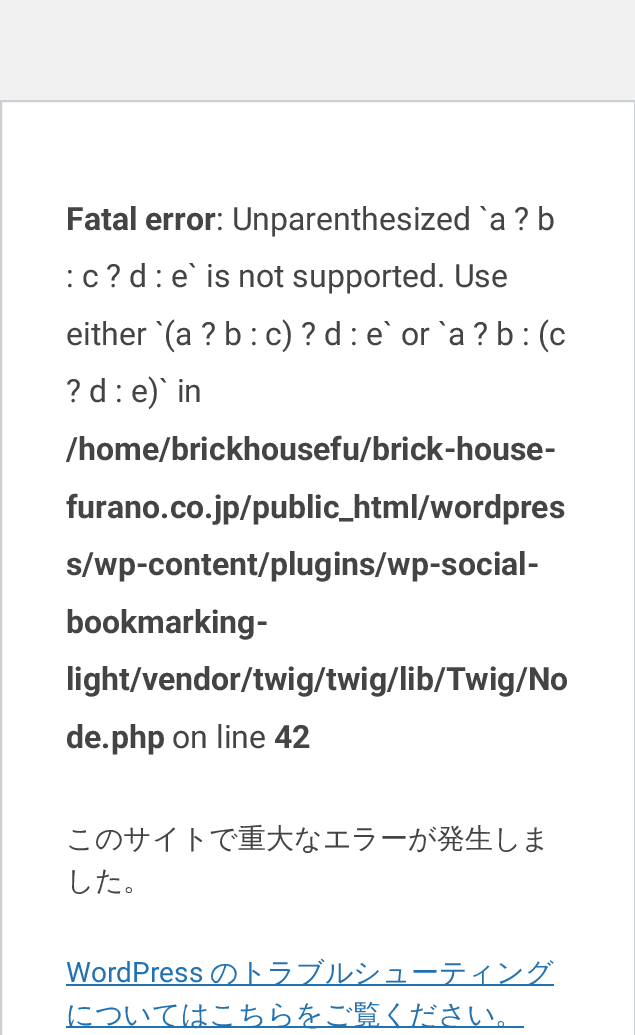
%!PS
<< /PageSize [635 1035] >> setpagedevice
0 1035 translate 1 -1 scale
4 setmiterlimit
0.945 setgray
0 0 635 1035 rectfill
1 setgray
newpath 1 101 moveto 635 101 lineto 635 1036 lineto 1 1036 lineto closepath gsave fill grestore
0.8 0.816 0.831 setrgbcolor
2 setlinewidth
stroke
/Roboto-Bold [32 0 0 -32 0 0] selectfont
0.267 setgray
66 230 moveto (Fatal error) show
/Roboto-Regular [32 0 0 -32 0 0] selectfont
216 230 moveto (: Unparenthesized `a ? b) show
66 287 moveto (: c ? d : e` is not supported. Use) show
66 345 moveto (either `\(a ? b : c\) ? d : e` or `a ? b : \(c) show
66 402 moveto (? d : e\)` in) show
/Roboto-Bold [32 0 0 -32 0 0] selectfont
66 460 moveto (/home/brickhousefu/brick-house-) show
66 518 moveto (furano.co.jp/public_html/wordpres) show
66 575 moveto (s/wp-content/plugins/wp-social-) show
66 633 moveto (bookmarking-) show
66 690 moveto (light/vendor/twig/twig/lib/Twig/No) show
66 748 moveto (de.php) show
/Roboto-Regular [32 0 0 -32 0 0] selectfont
172 748 moveto (on line) show
/Roboto-Bold [32 0 0 -32 0 0] selectfont
274 748 moveto (42) show
/WenQuanYiZenHei-Medium [28 0 0 -28 0 0] selectfont
66 848 moveto (このサイトで重大なエラーが発生しま) show
66 890 moveto (した。) show
/Roboto-Regular [28 0 0 -28 0 0] selectfont
0.133 0.443 0.694 setrgbcolor
66 982 moveto (WordPress) show
66 984 488 2 rectfill
/WenQuanYiZenHei-Medium [28 0 0 -28 0 0] selectfont
210 982 moveto (のトラブルシューティング) show
66 1026 458 2 rectfill
66 1024 moveto (についてはこちらをご覧ください。) show
showpage
